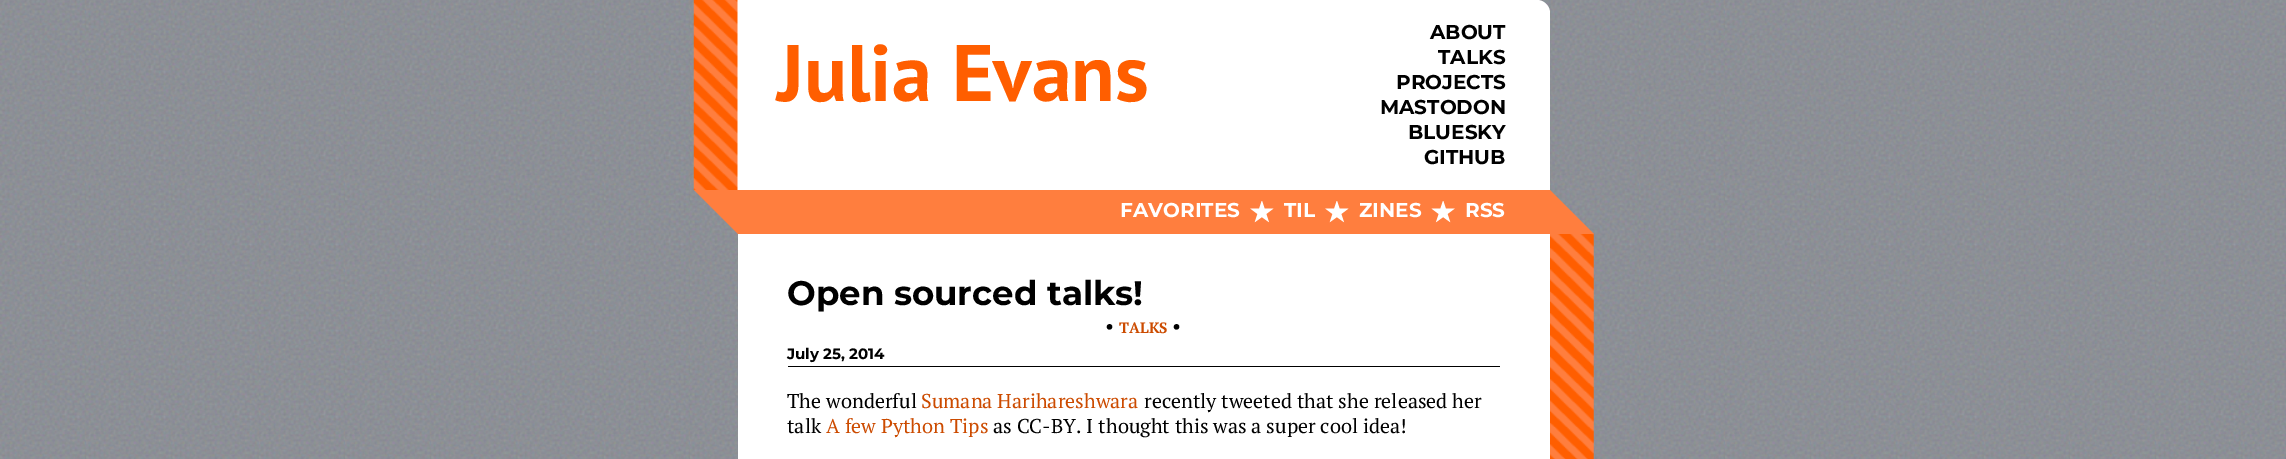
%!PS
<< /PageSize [2286 459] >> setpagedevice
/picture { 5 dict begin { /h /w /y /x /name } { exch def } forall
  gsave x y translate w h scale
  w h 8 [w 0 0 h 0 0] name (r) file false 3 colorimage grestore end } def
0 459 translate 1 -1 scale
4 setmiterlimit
0.51 0.525 0.557 setrgbcolor
0 0 2286 459 rectfill
(img1.rgb) 0 0 2286 459 picture
1 setgray
newpath 694 0 moveto 1537 0 lineto 1544 0 1550 6 1550 13 curveto 1550 190 lineto 694 190 lineto closepath fill
(img2.rgb) 693 0 45 190 picture
/PTSans-Bold [80 0 0 -80 0 0] selectfont
1 0.369 0 setrgbcolor
777 101 moveto (Julia Evans) show
/Montserrat-Bold [20 0 0 -20 0 0] selectfont
0 setgray
1430 39 moveto (ABOUT) show
1438 64 moveto (TALKS) show
1396 89 moveto (PROJECTS) show
1380 114 moveto (MASTODON) show
1408 139 moveto (BLUESKY) show
1424 164 moveto (GITHUB) show
1 0.494 0.243 setrgbcolor
738 190 812 44 rectfill
newpath 694 190 moveto 781 190 lineto 738 234 lineto closepath fill
1 setgray
1120 217 moveto (FAVORITES) show
(img3.rgb) 1250 201 24 22 picture
1284 217 moveto (TIL) show
(img4.rgb) 1325 201 24 22 picture
1359 217 moveto (ZINES) show
(img5.rgb) 1431 201 24 22 picture
1465 217 moveto (RSS) show
(img6.rgb) 1550 233 44 226 picture
1 0.494 0.243 setrgbcolor
newpath 1594 234 moveto 1506 234 lineto 1550 190 lineto closepath fill
1 setgray
738 234 812 225 rectfill
0 setgray
788 366 712 1 rectfill
/Montserrat-Bold [34 0 0 -34 0 0] selectfont
787 305 moveto (Open sourced talks!) show
/PTSerif-Regular [20 0 0 -20 0 0] selectfont
1105 333 moveto (•) show
/PTSerif-Bold [15 0 0 -15 0 0] selectfont
0.8 0.294 0 setrgbcolor
1119 333 moveto (TALKS) show
/PTSerif-Regular [20 0 0 -20 0 0] selectfont
0 setgray
1172 333 moveto (•) show
/Montserrat-Bold [15 0 0 -15 0 0] selectfont
787 359 moveto (July 25, 2014) show
/PTSerif-Regular [20 0 0 -20 0 0] selectfont
787 408 moveto (The wonderful) show
0.8 0.294 0 setrgbcolor
921 408 moveto (Sumana Harihareshwara) show
0 setgray
1144 408 moveto (recently tweeted that she released her) show
787 433 moveto (talk) show
0.8 0.294 0 setrgbcolor
826 433 moveto (A few Python Tips) show
0 setgray
993 433 moveto (as CC-BY. I thought this was a super cool idea!) show
showpage
